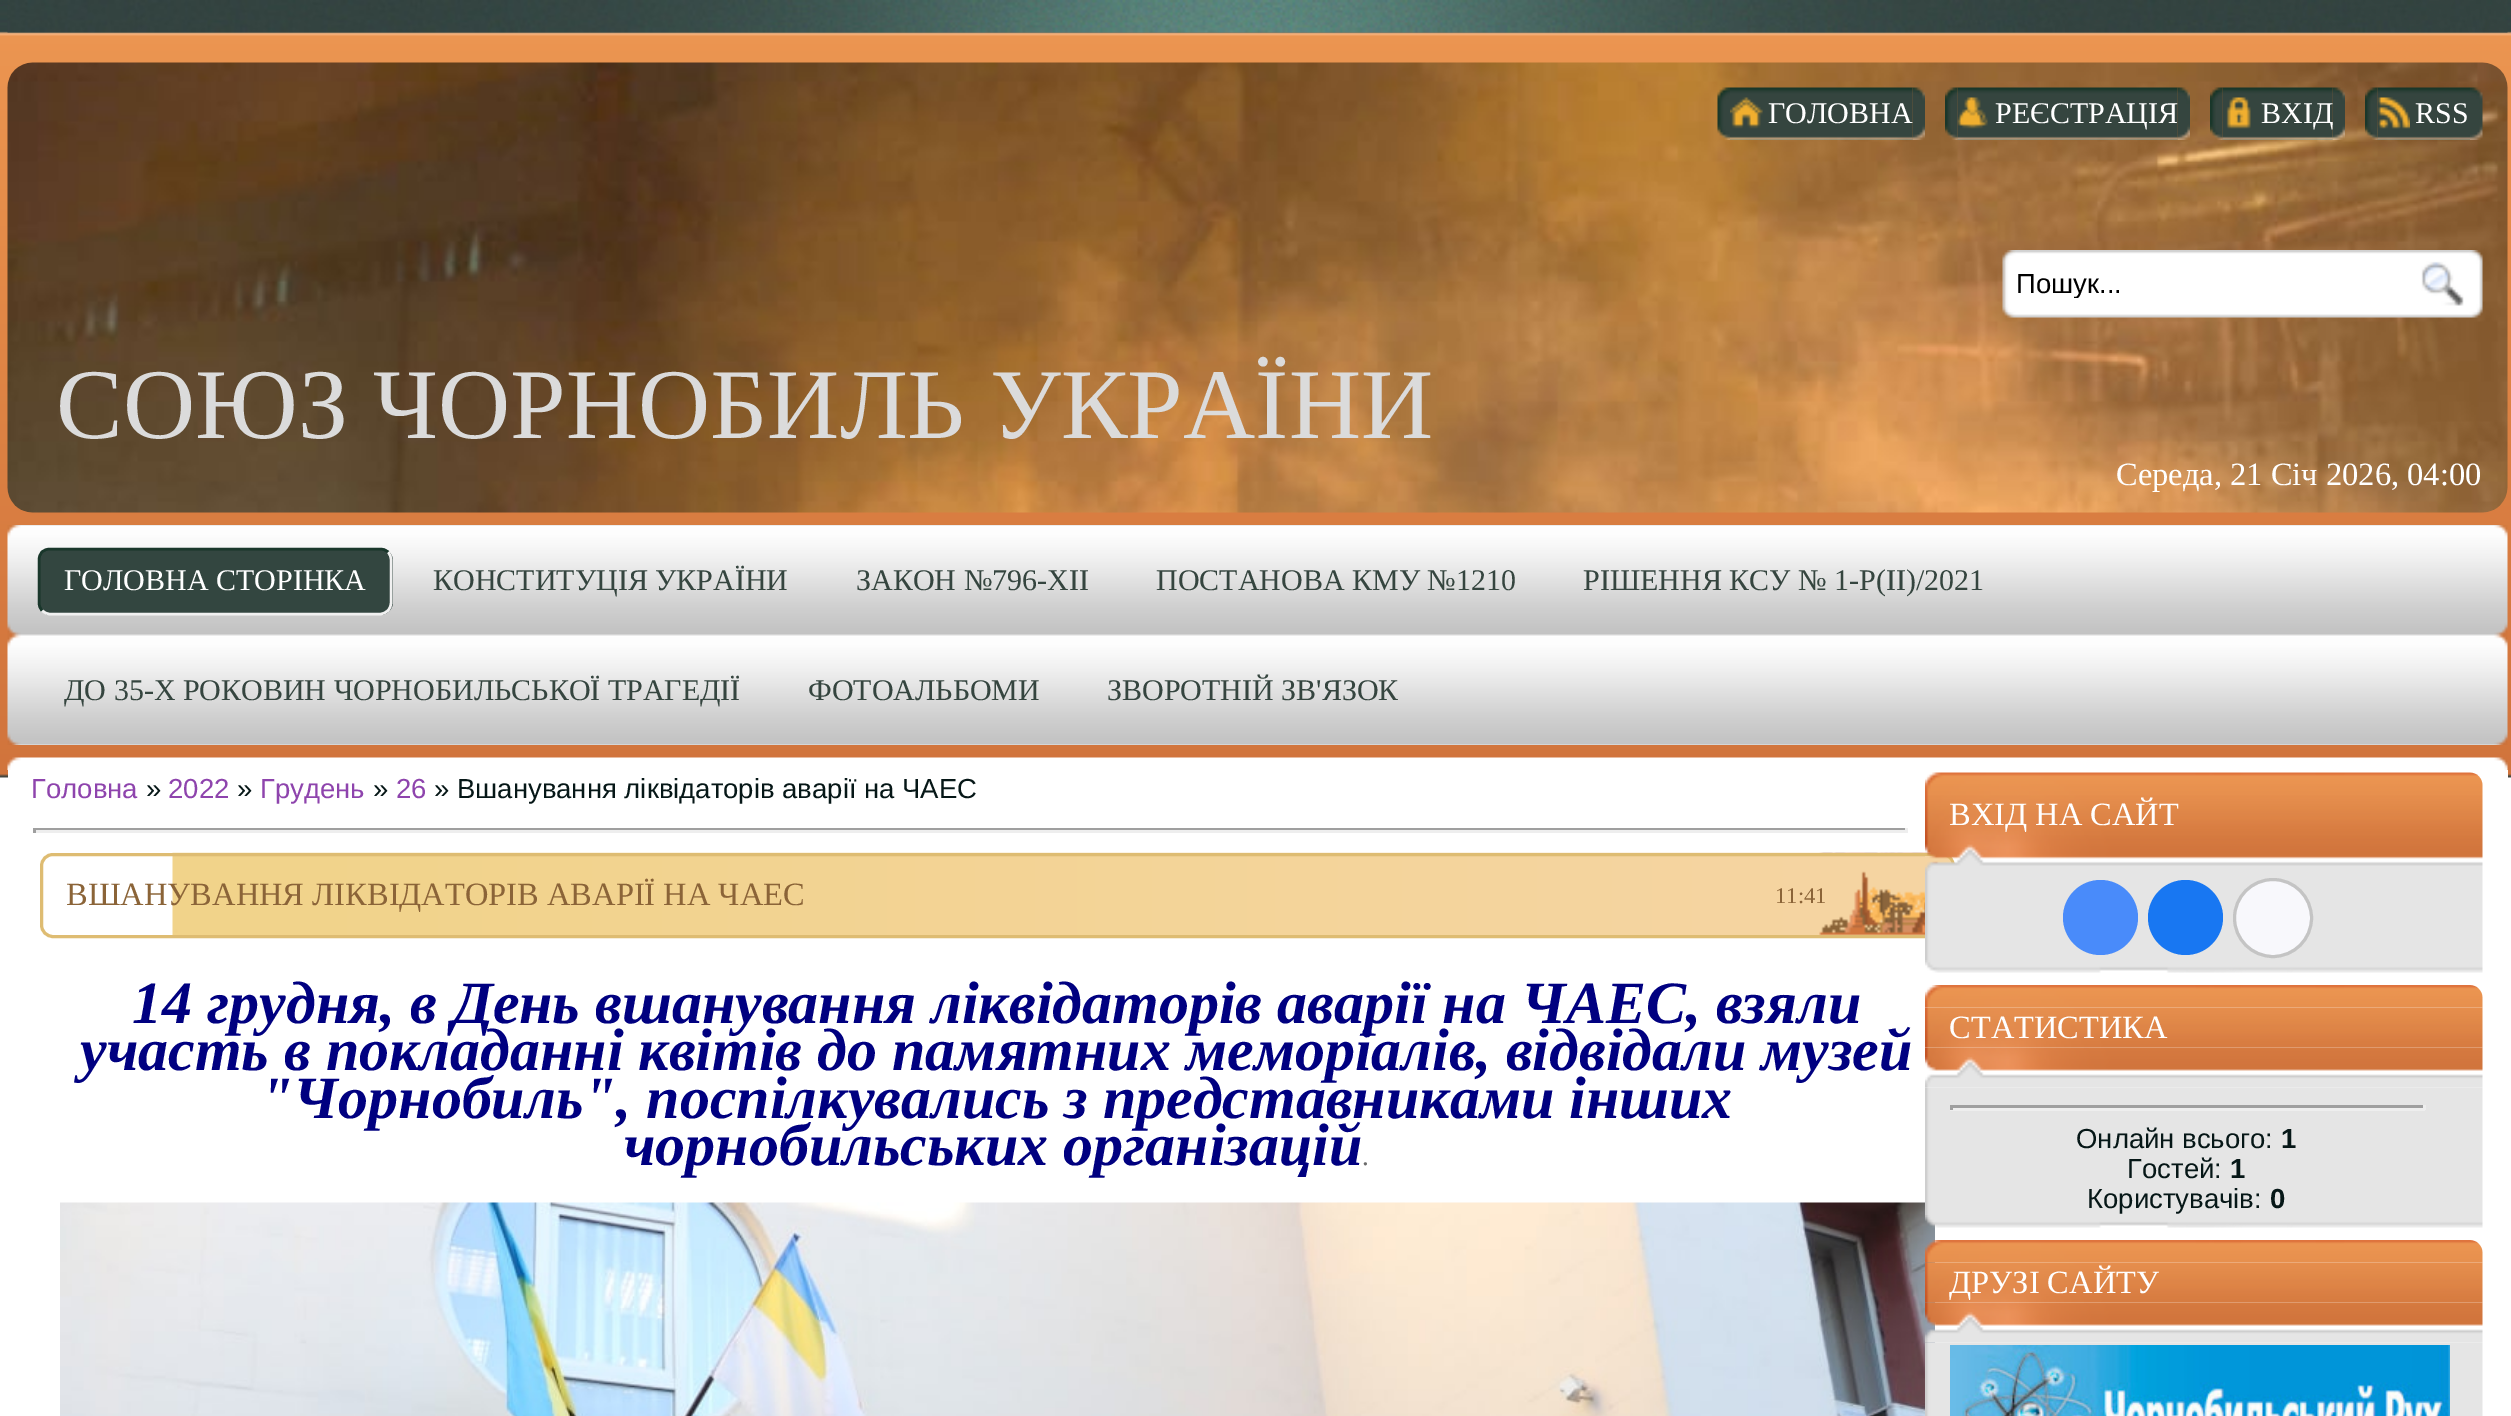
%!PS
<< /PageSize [2511 1416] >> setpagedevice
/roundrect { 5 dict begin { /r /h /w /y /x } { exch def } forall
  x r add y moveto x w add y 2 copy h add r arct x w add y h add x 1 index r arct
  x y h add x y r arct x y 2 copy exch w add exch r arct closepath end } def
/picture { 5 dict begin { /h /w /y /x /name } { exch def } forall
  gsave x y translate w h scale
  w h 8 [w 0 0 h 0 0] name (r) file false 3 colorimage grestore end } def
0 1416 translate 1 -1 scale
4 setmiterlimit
1 setgray
0 0 2511 1416 rectfill
(img1.rgb) 0 0 2511 778 picture
(img2.rgb) 7 0 2501 33 picture
(img3.rgb) 7 62 2501 451 picture
(img4.rgb) 1717 87 13 53 picture
(img7.rgb) 1912 87 13 53 picture
(img5.rgb) 1730 87 183 53 picture
(img6.rgb) 1730 97 33 32 picture
/LiberationSerif-Regular [30 0 0 -30 0 0] selectfont
1768 123 moveto (ГОЛОВНА) show
(img11.rgb) 2177 87 13 53 picture
(img9.rgb) 1957 87 221 53 picture
(img10.rgb) 1957 97 31 32 picture
(img8.rgb) 1945 87 13 53 picture
1995 123 moveto (РЕЄСТРАЦІЯ) show
(img15.rgb) 2332 87 13 53 picture
(img13.rgb) 2222 87 111 53 picture
(img12.rgb) 2210 87 13 53 picture
(img14.rgb) 2226 97 25 32 picture
2261 123 moveto (ВХІД) show
(img17.rgb) 2377 87 93 53 picture
(img18.rgb) 2377 97 33 32 picture
(img16.rgb) 2365 87 13 53 picture
2415 123 moveto (RSS) show
(img19.rgb) 2470 87 13 53 picture
/LiberationSerif-Regular [100 0 0 -100 0 0] selectfont
0.859 setgray
56 438 moveto (СОЮЗ ЧОРНОБИЛЬ УКРАЇНИ) show
(img20.rgb) 2002 250 481 68 picture
gsave
2018 268 377 30 rectclip
/LiberationSans-Regular [27.5 0 0 -27.5 0 0] selectfont
0 setgray
2016 293 moveto (Пошук...) show
grestore
/LiberationSerif-Regular [32.5 0 0 -32.5 0 0] selectfont
1 setgray
2116 485 moveto (Середа, 21 Січ 2026, 04:00) show
(img21.rgb) 7 525 2501 220 picture
0.2 0.275 0.251 setrgbcolor
38 548 355 67 13 roundrect fill
0.945 setgray
2.5 setlinewidth
newpath 388 552 moveto 390 554 391 557 391 560 curveto 391 602.5 lineto 391 605.5 390 608.5 388 610.5 curveto 386 612.5 383 614 380 614 curveto 50 614 lineto 47 614 44 612.5 42 610.5 curveto stroke
0.098 0.216 0.169 setrgbcolor
newpath 42 610.5 moveto 40 608.5 39 605.5 39 602.5 curveto 39 560 lineto 39 557 40 554 42 552 curveto 44 550 47 549 50 549 curveto 380 549 lineto 383 549 386 550 388 552 curveto stroke
/LiberationSerif-Regular [30 0 0 -30 0 0] selectfont
1 setgray
64 590 moveto (ГОЛОВНА СТОРІНКА) show
0.208 0.271 0.247 setrgbcolor
433 590 moveto (КОНСТИТУЦІЯ УКРАЇНИ) show
856 590 moveto (ЗАКОН №796-ХІІ) show
1156 590 moveto (ПОСТАНОВА КМУ №1210) show
1583 590 moveto (РІШЕННЯ КСУ № 1-Р\(II\)/2021) show
64 700 moveto (ДО 35-Х РОКОВИН ЧОРНОБИЛЬСЬКОЇ ТРАГЕДІЇ) show
808 700 moveto (ФОТОАЛЬБОМИ) show
1107 700 moveto (ЗВОРОТНІЙ ЗВ'ЯЗОК) show
(img22.rgb) 7 757 2501 13 picture
1 setgray
8 770 2500 8 rectfill
/LiberationSans-Regular [27.5 0 0 -27.5 0 0] selectfont
0.557 0.267 0.678 setrgbcolor
31 798 moveto (Головна) show
0.024 0.09 0.09 setrgbcolor
146 798 moveto (») show
0.557 0.267 0.678 setrgbcolor
168 798 moveto (2022) show
0.024 0.09 0.09 setrgbcolor
237 798 moveto (») show
0.557 0.267 0.678 setrgbcolor
260 798 moveto (Грудень) show
0.024 0.09 0.09 setrgbcolor
373 798 moveto (») show
0.557 0.267 0.678 setrgbcolor
396 798 moveto (26) show
0.024 0.09 0.09 setrgbcolor
434 798 moveto (» Вшанування ліквідаторів аварії на ЧАЕС) show
0.624 setgray
33 828 1875 2 rectfill
0.933 setgray
1905 828 3 5 rectfill
33 830 1875 3 rectfill
0.624 setgray
33 828 3 5 rectfill
(img23.rgb) 172 852 1781 83 picture
0.871 0.737 0.447 setrgbcolor
3 setlinewidth
41.5 854.5 1912 82 11.5 roundrect stroke
/LiberationSerif-Regular [32.5 0 0 -32.5 0 0] selectfont
0.545 0.392 0.22 setrgbcolor
66 905 moveto (ВШАНУВАННЯ ЛІКВІДАТОРІВ АВАРІЇ НА ЧАЕС) show
/LiberationSerif-Regular [22.5 0 0 -22.5 0 0] selectfont
1775 903 moveto (11:41) show
/LiberationSerif-BoldItalic [60 0 0 -60 0 0] selectfont
0 0 0.502 setrgbcolor
132 1023 moveto (14 грудня, в День вшанування ліквідаторів аварії на ЧАЕС, взяли) show
80 1070 moveto (участь в покладанні квітів до памятних меморіалів, відвідали музей) show
260 1118 moveto ("Чорнобиль", поспілкувались з представниками інших) show
624 1165 moveto (чорнобильських організацій) show
/LiberationSerif-Regular [27.5 0 0 -27.5 0 0] selectfont
0.42 setgray
1362 1165 moveto (.) show
(img24.rgb) 60 1202 1875 214 picture
(img25.rgb) 1925 772 558 23 picture
(img26.rgb) 1925 795 558 40 picture
/LiberationSerif-Regular [32.5 0 0 -32.5 0 0] selectfont
1 setgray
1949 825 moveto (ВХІД НА САЙТ) show
(img27.rgb) 1925 835 558 40 picture
(img28.rgb) 1925 875 558 85 picture
0.286 0.545 0.98 setrgbcolor
newpath 2100.5 917.5 37.5 0 360 arc closepath fill
0.094 0.467 0.949 setrgbcolor
newpath 2185.5 917.5 37.5 0 360 arc closepath fill
0.973 0.973 0.988 setrgbcolor
newpath 2273 918 38.5 0 360 arc closepath gsave fill grestore
0.769 setgray
stroke
(img29.rgb) 1925 960 558 13 picture
(img31.rgb) 1925 1007 558 41 picture
(img30.rgb) 1925 985 558 23 picture
1 setgray
1949 1038 moveto (СТАТИСТИКА) show
(img33.rgb) 1925 1087 558 128 picture
(img32.rgb) 1925 1047 558 41 picture
0.624 setgray
1950 1105 475 3 rectfill
0.933 setgray
2423 1105 3 5 rectfill
1950 1108 475 3 rectfill
0.624 setgray
1950 1105 3 5 rectfill
/LiberationSans-Regular [27.5 0 0 -27.5 0 0] selectfont
0.024 0.09 0.09 setrgbcolor
2076 1148 moveto (Онлайн всього:) show
/LiberationSans-Bold [27.5 0 0 -27.5 0 0] selectfont
2281 1148 moveto (1) show
/LiberationSans-Regular [27.5 0 0 -27.5 0 0] selectfont
2127 1178 moveto (Гостей:) show
/LiberationSans-Bold [27.5 0 0 -27.5 0 0] selectfont
2230 1178 moveto (1) show
/LiberationSans-Regular [27.5 0 0 -27.5 0 0] selectfont
2087 1208 moveto (Користувачів:) show
/LiberationSans-Bold [27.5 0 0 -27.5 0 0] selectfont
2270 1208 moveto (0) show
(img34.rgb) 1925 1215 558 13 picture
(img36.rgb) 1925 1262 558 41 picture
(img35.rgb) 1925 1240 558 23 picture
/LiberationSerif-Regular [32.5 0 0 -32.5 0 0] selectfont
1 setgray
1949 1293 moveto (ДРУЗІ САЙТУ) show
(img38.rgb) 1925 1342 558 74 picture
(img37.rgb) 1925 1302 558 41 picture
(img39.rgb) 1950 1345 500 71 picture
showpage
